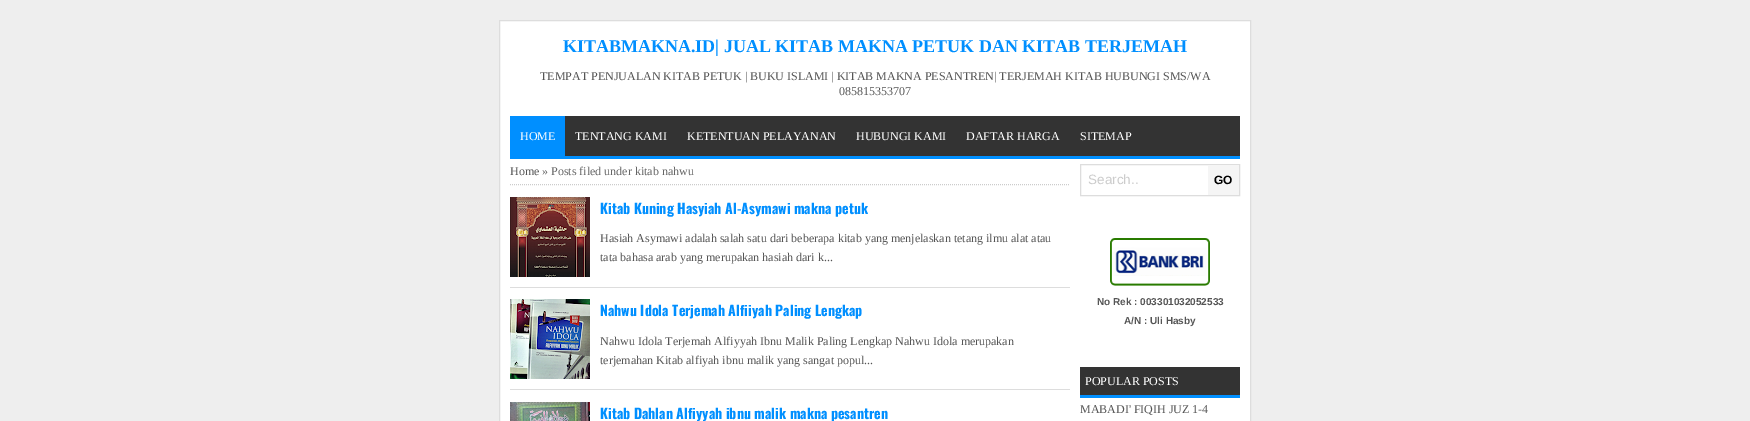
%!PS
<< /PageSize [1750 421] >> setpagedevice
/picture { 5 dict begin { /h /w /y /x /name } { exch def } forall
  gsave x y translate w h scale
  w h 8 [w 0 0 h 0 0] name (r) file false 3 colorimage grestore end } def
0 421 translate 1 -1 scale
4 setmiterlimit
0.933 setgray
0 0 1750 421 rectfill
1 setgray
newpath 499.5 20.5 moveto 1250.5 20.5 lineto 1250.5 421.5 lineto 499.5 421.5 lineto closepath gsave fill grestore
0.867 setgray
stroke
/LiberationSerif-Bold [18 0 0 -18 0 0] selectfont
0 0.561 1 setrgbcolor
563 52 moveto (KITABMAKNA.ID| JUAL KITAB MAKNA PETUK DAN KITAB TERJEMAH) show
/LiberationSerif-Regular [12 0 0 -12 0 0] selectfont
0.333 setgray
540 80 moveto (TEMPAT PENJUALAN KITAB PETUK | BUKU ISLAMI | KITAB MAKNA PESANTREN| TERJEMAH KITAB HUBUNGI SMS/WA) show
839 95 moveto (085815353707) show
0.2 setgray
565 116 675 40 rectfill
0 0.561 1 setrgbcolor
510 156 730 3 rectfill
510 116 55 40 rectfill
1 setgray
520 140 moveto (HOME) show
575 140 moveto (TENTANG KAMI) show
687 140 moveto (KETENTUAN PELAYANAN) show
856 140 moveto (HUBUNGI KAMI) show
966 140 moveto (DAFTAR HARGA) show
1080 140 moveto (SITEMAP) show
0.8 setgray
[1 1] 0 setdash
newpath 510 184.5 moveto 1070 184.5 lineto stroke
0.333 setgray
510 175 moveto (Home) show
0.4 setgray
542 175 moveto (» Posts filed under kitab nahwu) show
0.867 setgray
510 287 560 1 rectfill
(img1.rgb) 510 197 80 80 picture
/Oswald-Bold [14 0 0 -14 0 0] selectfont
0 0.561 1 setrgbcolor
600 214 moveto (Kitab Kuning Hasyiah Al-Asymawi makna petuk) show
/LiberationSerif-Regular [12 0 0 -12 0 0] selectfont
0.333 setgray
600 242 moveto (Hasiah Asymawi adalah salah satu dari beberapa kitab yang menjelaskan tetang ilmu alat atau) show
600 261 moveto (tata bahasa arab yang merupakan hasiah dari k...) show
0.867 setgray
510 389 560 1 rectfill
(img2.rgb) 510 299 80 80 picture
/Oswald-Bold [14 0 0 -14 0 0] selectfont
0 0.561 1 setrgbcolor
600 316 moveto (Nahwu Idola Terjemah Alfiiyah Paling Lengkap) show
/LiberationSerif-Regular [12 0 0 -12 0 0] selectfont
0.333 setgray
600 345 moveto (Nahwu Idola Terjemah Alfiyyah Ibnu Malik Paling Lengkap Nahwu Idola merupakan) show
600 364 moveto (terjemahan Kitab alfiyah ibnu malik yang sangat popul...) show
(img3.rgb) 510 402 80 19 picture
/Oswald-Bold [14 0 0 -14 0 0] selectfont
0 0.561 1 setrgbcolor
600 419 moveto (Kitab Dahlan Alfiyyah ibnu malik makna pesantren) show
0.867 setgray
[] 0 setdash
1080.5 164.5 159 31 rectstroke
/LiberationSans-Regular [13.5 0 0 -13.5 0 0] selectfont
0.8 setgray
1088 184 moveto (Search..) show
0.961 setgray
1208 165 31 30 rectfill
/LiberationSans-Bold [12 0 0 -12 0 0] selectfont
0 setgray
1214 184 moveto (GO) show
(img4.rgb) 1110 238 100 48 picture
/LiberationSans-Bold [10 0 0 -10 0 0] selectfont
0.333 setgray
1097 305 moveto (No Rek : 003301032052533) show
1124 324 moveto (A/N : Uli Hasby) show
0.2 setgray
1080 367 160 28 rectfill
0 0.561 1 setrgbcolor
1080 395 160 3 rectfill
/LiberationSerif-Regular [12 0 0 -12 0 0] selectfont
1 setgray
1085 385 moveto (POPULAR POSTS) show
0.333 setgray
1080 413 moveto (MABADI' FIQIH JUZ 1-4) show
showpage
